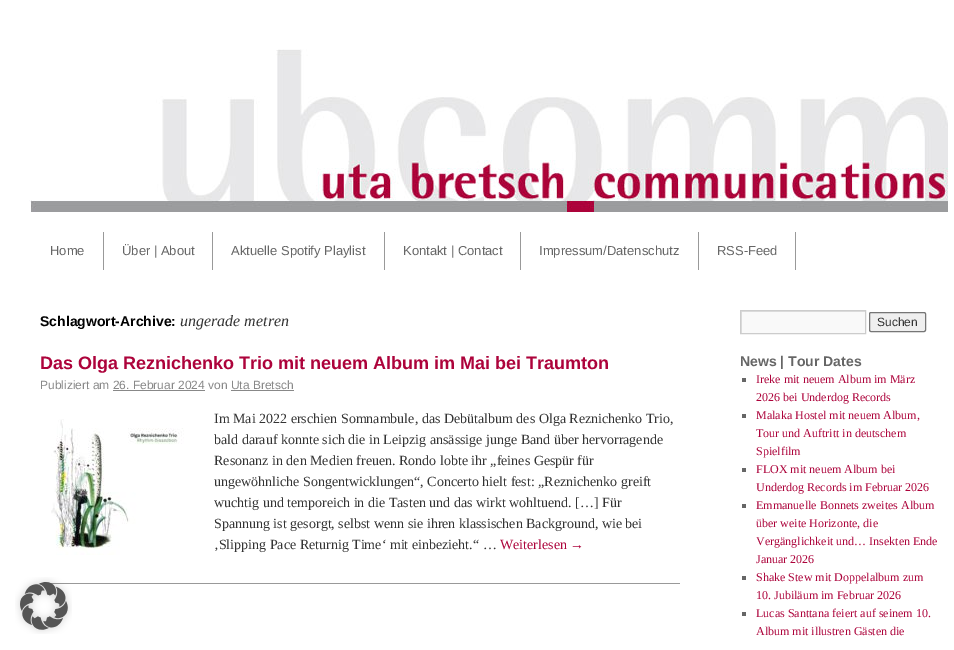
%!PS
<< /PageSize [954 650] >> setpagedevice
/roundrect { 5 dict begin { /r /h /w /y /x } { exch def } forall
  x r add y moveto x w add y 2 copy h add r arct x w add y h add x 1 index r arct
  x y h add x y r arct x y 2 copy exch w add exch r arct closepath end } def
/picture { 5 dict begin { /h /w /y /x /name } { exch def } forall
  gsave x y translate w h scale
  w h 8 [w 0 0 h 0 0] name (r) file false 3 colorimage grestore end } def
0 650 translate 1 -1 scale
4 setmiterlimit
1 setgray
0 0 954 650 rectfill
(img1.rgb) 29 49 919 163 picture
0.6 setgray
103 232 1 38 rectfill
/LiberationSans-Regular [13 0 0 -13 0 0] selectfont
0.4 setgray
50 255 moveto (Home) show
0.6 setgray
212 232 1 38 rectfill
0.4 setgray
122 255 moveto (Über | About) show
0.6 setgray
384 232 1 38 rectfill
0.4 setgray
231 255 moveto (Aktuelle Spotify Playlist) show
0.6 setgray
520 232 1 38 rectfill
0.4 setgray
403 255 moveto (Kontakt | Contact) show
0.6 setgray
698 232 1 38 rectfill
0.4 setgray
539 255 moveto (Impressum/Datenschutz) show
0.6 setgray
795 232 1 38 rectfill
0.4 setgray
717 255 moveto (RSS-Feed) show
/LiberationSans-Bold [14 0 0 -14 0 0] selectfont
0 setgray
40 326 moveto (Schlagwort-Archive:) show
/LiberationSerif-Italic [16 0 0 -16 0 0] selectfont
0.2 setgray
180 326 moveto (ungerade metren) show
0.6 setgray
40 583 640 1 rectfill
/LiberationSans-Bold [18 0 0 -18 0 0] selectfont
0.678 0.012 0.231 setrgbcolor
40 369 moveto (Das Olga Reznichenko Trio mit neuem Album im Mai bei Traumton) show
/LiberationSans-Regular [12 0 0 -12 0 0] selectfont
0.533 setgray
40 389 moveto (Publiziert am 26. Februar 2024 von Uta Bretsch) show
113 390 92 1 rectfill
231 390 63 1 rectfill
(img2.rgb) 51 419 133 136 picture
/LiberationSerif-Regular [14 0 0 -14 0 0] selectfont
0.2 setgray
214 423 moveto (Im Mai 2022 erschien Somnambule, das Debütalbum des Olga Reznichenko Trio,) show
214 444 moveto (bald darauf konnte sich die in Leipzig ansässige junge Band über hervorragende) show
214 465 moveto (Resonanz in den Medien freuen. Rondo lobte ihr „feines Gespür für) show
214 486 moveto (ungewöhnliche Songentwicklungen“, Concerto hielt fest: „Reznichenko greift) show
214 507 moveto (wuchtig und temporeich in die Tasten und das wirkt wohltuend. […] Für) show
214 528 moveto (Spannung ist gesorgt, selbst wenn sie ihren klassischen Background, wie bei) show
214 549 moveto (‚Slipping Pace Returnig Time‘ mit einbezieht.“ …) show
0.678 0.012 0.231 setrgbcolor
500 549 moveto (Weiterlesen →) show
0.976 setgray
742 312 123 21 rectfill
gsave
741 311 124 22 rectclip
0.878 setgray
newpath 642 212 moveto 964 212 lineto 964 432 lineto 642 432 lineto closepath 742 312 moveto 866 312 lineto 866 334 lineto 742 334 lineto closepath eofill
grestore
0.8 setgray
740.5 310.5 125 23 rectstroke
0.937 setgray
869.5 312.5 56 19 1.5 roundrect gsave fill grestore
0.463 setgray
stroke
/LiberationSans-Regular [12 0 0 -12 0 0] selectfont
0.2 setgray
877 326 moveto (Suchen) show
/LiberationSans-Bold [14 0 0 -14 0 0] selectfont
0.4 setgray
740 366 moveto (News | Tour Dates) show
742 378 4 4 rectfill
/LiberationSerif-Regular [12 0 0 -12 0 0] selectfont
0.678 0.012 0.231 setrgbcolor
756 383 moveto (Ireke mit neuem Album im März) show
756 401 moveto (2026 bei Underdog Records) show
0.4 setgray
742 414 4 4 rectfill
0.678 0.012 0.231 setrgbcolor
756 419 moveto (Malaka Hostel mit neuem Album,) show
756 437 moveto (Tour und Auftritt in deutschem) show
756 455 moveto (Spielfilm) show
0.4 setgray
742 468 4 4 rectfill
0.678 0.012 0.231 setrgbcolor
756 473 moveto (FLOX mit neuem Album bei) show
756 491 moveto (Underdog Records im Februar 2026) show
0.4 setgray
742 504 4 4 rectfill
0.678 0.012 0.231 setrgbcolor
756 509 moveto (Emmanuelle Bonnets zweites Album) show
756 527 moveto (über weite Horizonte, die) show
756 545 moveto (Vergänglichkeit und… Insekten Ende) show
756 563 moveto (Januar 2026) show
0.4 setgray
742 576 4 4 rectfill
0.678 0.012 0.231 setrgbcolor
756 581 moveto (Shake Stew mit Doppelalbum zum) show
756 599 moveto (10. Jubiläum im Februar 2026) show
0.4 setgray
742 612 4 4 rectfill
0.678 0.012 0.231 setrgbcolor
756 617 moveto (Lucas Santtana feiert auf seinem 10.) show
756 635 moveto (Album mit illustren Gästen die) show
(img3.rgb) 15 577 57 57 picture
showpage
